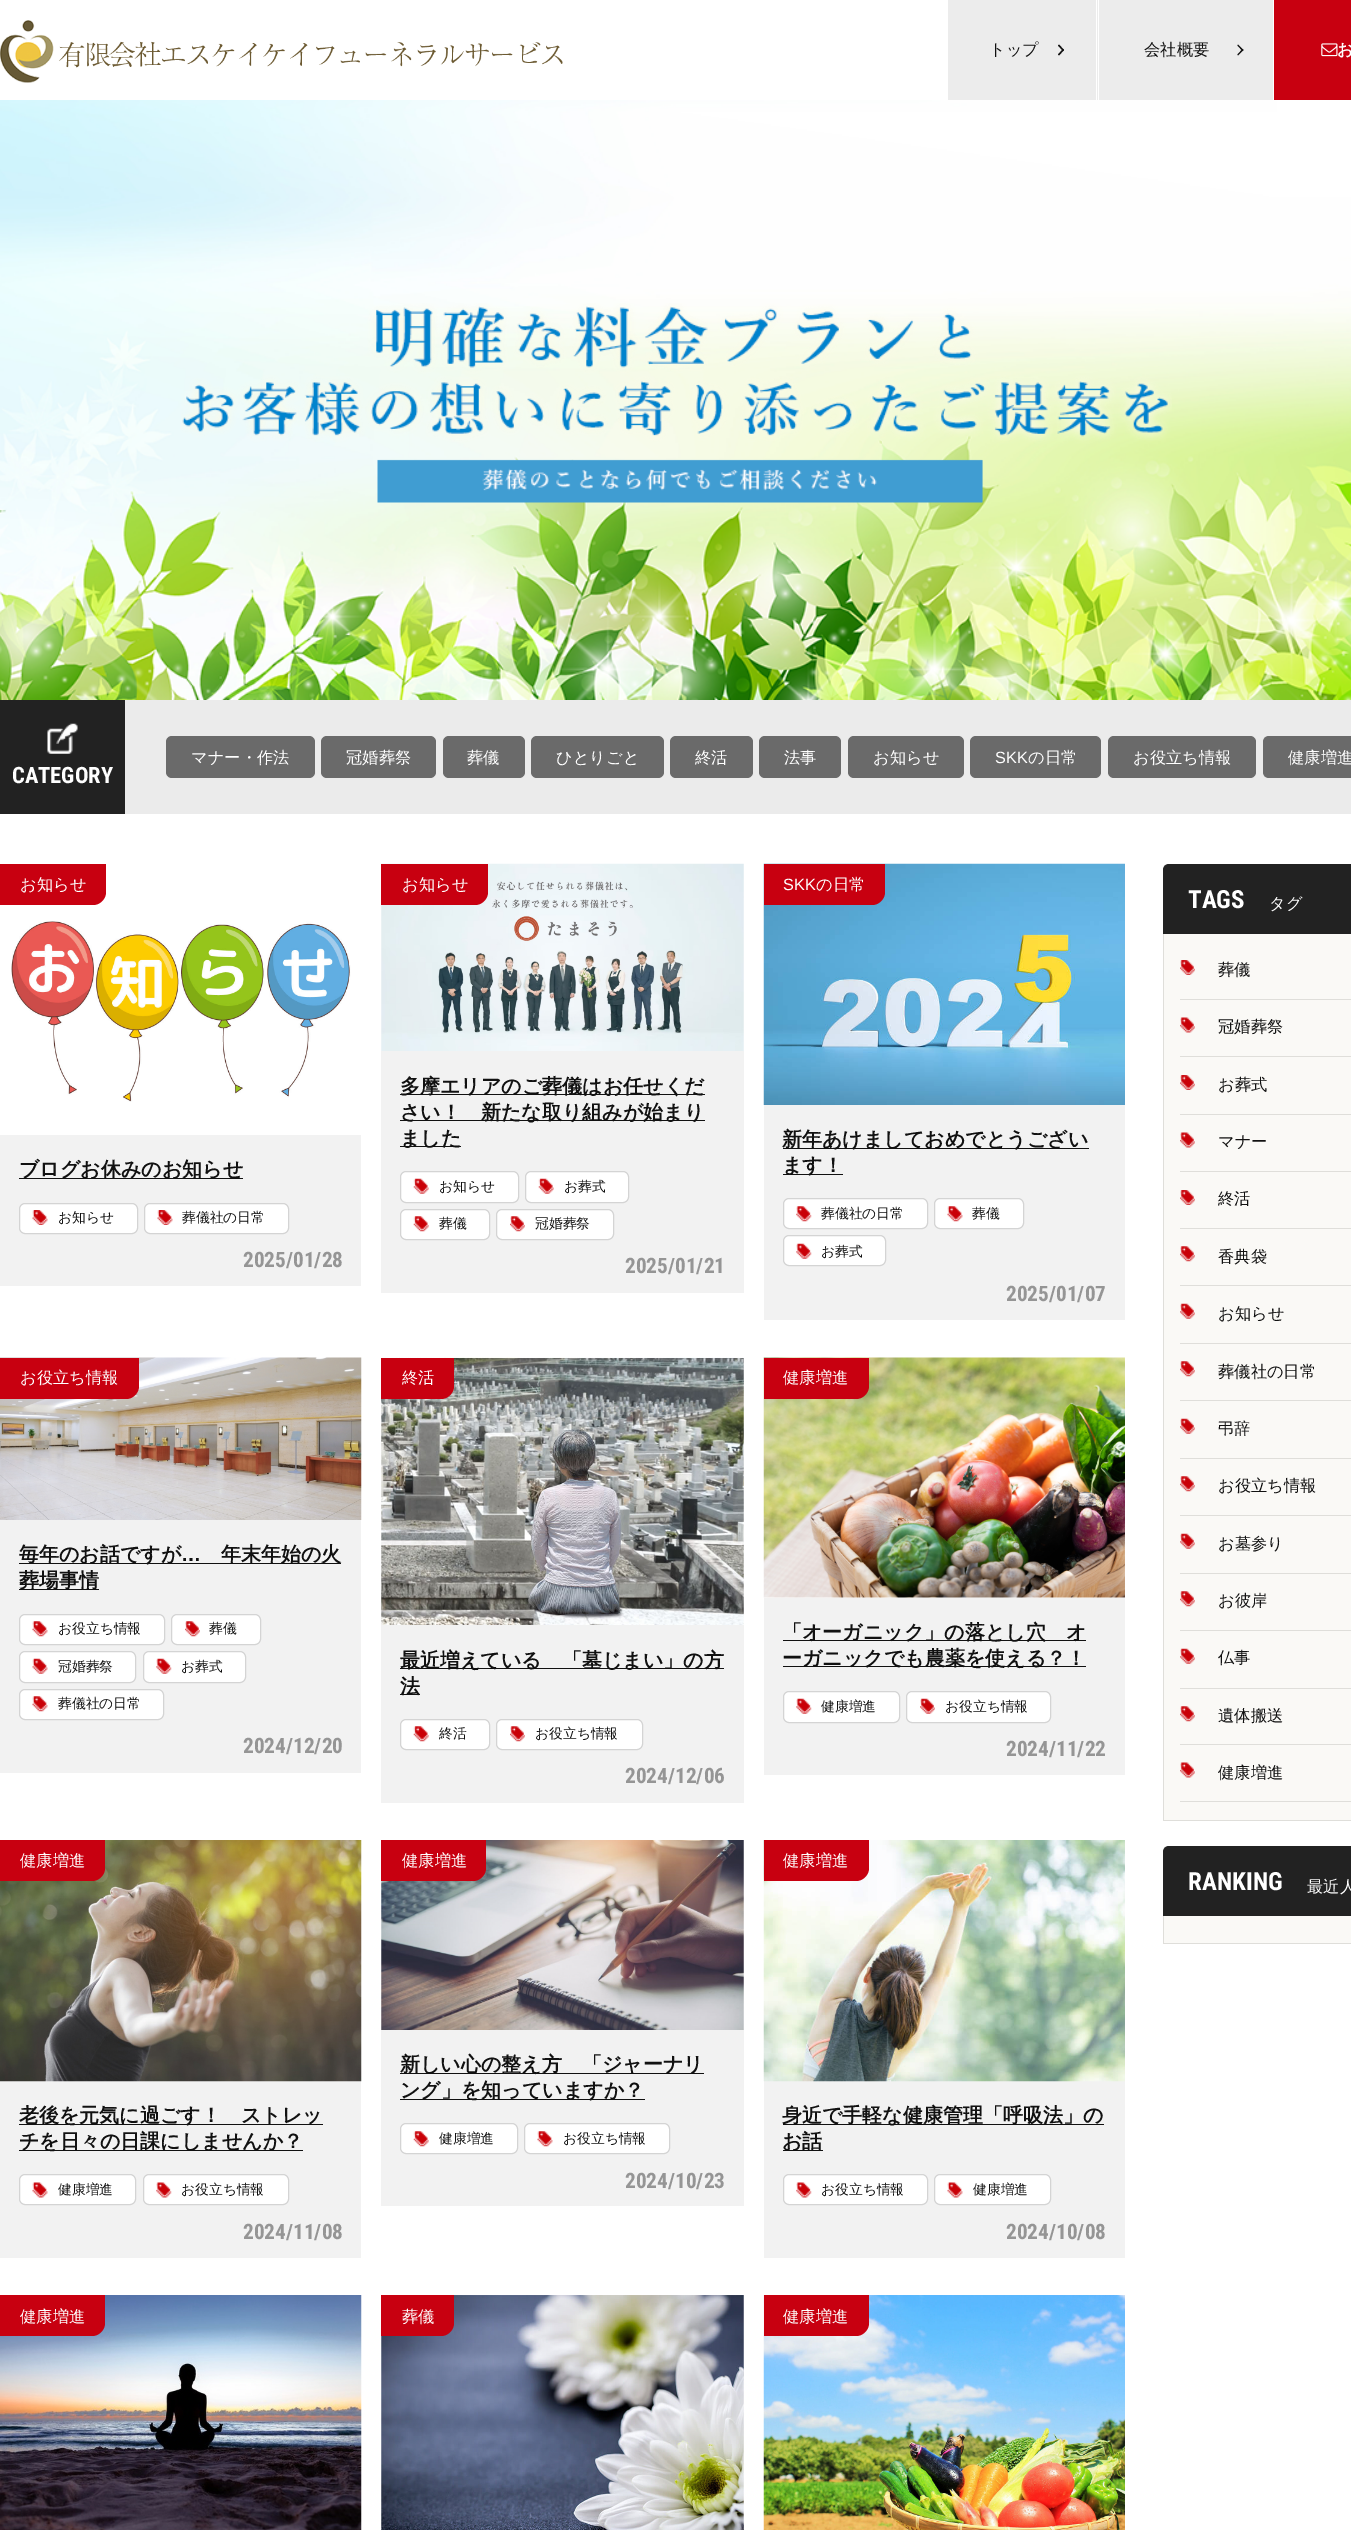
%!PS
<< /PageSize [1351 2530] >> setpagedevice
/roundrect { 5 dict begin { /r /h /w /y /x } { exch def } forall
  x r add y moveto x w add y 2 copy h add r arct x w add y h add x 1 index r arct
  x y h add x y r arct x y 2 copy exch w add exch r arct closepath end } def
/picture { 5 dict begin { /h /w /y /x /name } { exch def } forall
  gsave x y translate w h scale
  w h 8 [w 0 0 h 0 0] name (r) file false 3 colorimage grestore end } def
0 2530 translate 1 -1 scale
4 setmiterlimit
1 setgray
0 0 1351 2530 rectfill
(img1.rgb) 0 20 563 63 picture
0.925 setgray
948 0 150 100 rectfill
1 setgray
1096 0 1 100 rectfill
/WenQuanYiZenHei-Medium [16.25 0 0 -16.25 0 0] selectfont
0.067 setgray
989 55 moveto (トップ) show
newpath 1058 45.5 moveto 1059 44.5 lineto 1064 50 lineto 1063 51 lineto closepath fill
newpath 1058 54.5 moveto 1063 49 lineto 1064 50 lineto 1059 55.5 lineto closepath fill
0.925 setgray
1099 0 174 100 rectfill
0.067 setgray
1144 55 moveto (会社概要) show
newpath 1237.5 45.5 moveto 1238 44.5 lineto 1243.5 50 lineto 1242.5 51 lineto closepath fill
newpath 1237.5 54.5 moveto 1242.5 49 lineto 1243.5 50 lineto 1238 55.5 lineto closepath fill
0.784 0 0.063 setrgbcolor
1274 0 77 100 rectfill
(img2.rgb) 1321 43 17 14 picture
/WenQuanYiZenHei-Bold [16.25 0 0 -16.25 0 0] selectfont
1 setgray
1337 55 moveto (お) show
(img3.rgb) 0 100 1351 600 picture
(img4.rgb) 181 303 991 200 picture
0.133 setgray
0 700 125 114 rectfill
0.922 setgray
125 700 1226 114 rectfill
0.416 setgray
166 736 149 42 6 roundrect fill
/WenQuanYiZenHei-Medium [16.25 0 0 -16.25 0 0] selectfont
1 setgray
191 763 moveto (マナー・作法) show
0.416 setgray
321 736 115 42 6 roundrect fill
1 setgray
346 763 moveto (冠婚葬祭) show
0.416 setgray
443 736 82 42 6 roundrect fill
1 setgray
467 763 moveto (葬儀) show
0.416 setgray
531 736 133 42 6 roundrect fill
1 setgray
556 763 moveto (ひとりごと) show
0.416 setgray
670 736 83 42 6 roundrect fill
1 setgray
695 763 moveto (終活) show
0.416 setgray
759 736 82 42 6 roundrect fill
1 setgray
784 763 moveto (法事) show
0.416 setgray
848 736 116 42 6 roundrect fill
1 setgray
873 763 moveto (お知らせ) show
0.416 setgray
970 736 131 42 6 roundrect fill
/LiberationSans-Regular [16.25 0 0 -16.25 0 0] selectfont
1 setgray
995 763 moveto (SKK) show
/WenQuanYiZenHei-Medium [16.25 0 0 -16.25 0 0] selectfont
1028 763 moveto (の日常) show
0.416 setgray
1108 736 148 42 6 roundrect fill
1 setgray
1133 763 moveto (お役立ち情報) show
0.416 setgray
newpath 1269 736 moveto 1351 736 lineto 1351 778 lineto 1269 778 lineto 1265.5 778 1263 775.5 1263 772 curveto 1263 742 lineto 1263 738.5 1265.5 736 1269 736 curveto closepath fill
1 setgray
1288 763 moveto (健康増進) show
(img5.rgb) 47 723 31 31 picture
/RobotoCondensed-Bold [22.5 0 0 -22.5 0 0] selectfont
12 783 moveto (CATEGORY) show
0.784 0 0.063 setrgbcolor
newpath 0 864 moveto 106 864 lineto 106 892 lineto 106 899 100 905 93 905 curveto 0 905 lineto closepath fill
/WenQuanYiZenHei-Medium [16.25 0 0 -16.25 0 0] selectfont
1 setgray
20 890 moveto (お知らせ) show
(img6.rgb) 11 921 340 181 picture
0.949 setgray
0 1135 361 151 rectfill
0.067 setgray
19 1178 224 1 rectfill
/WenQuanYiZenHei-Bold [20 0 0 -20 0 0] selectfont
19 1176 moveto (ブログお休みのお知らせ) show
1 setgray
19 1203 119 31 6 roundrect fill
(img7.rgb) 32 1210 16 15 picture
0.831 setgray
19.5 1203.5 118 30 5.5 roundrect stroke
/WenQuanYiZenHei-Medium [13.75 0 0 -13.75 0 0] selectfont
0.067 setgray
58 1222 moveto (お知らせ) show
1 setgray
144 1203 145 31 6 roundrect fill
(img7.rgb) 157 1210 16 15 picture
0.831 setgray
144.5 1203.5 144 30 5.5 roundrect stroke
0.067 setgray
182 1222 moveto (葬儀社の日常) show
/RobotoCondensed-Bold [21.25 0 0 -21.25 0 0] selectfont
0.584 setgray
243 1267 moveto (2025/01/28) show
(img8.rgb) 381 863 363 188 picture
0.784 0 0.063 setrgbcolor
newpath 381 864 moveto 488 864 lineto 488 892 lineto 488 899 482 905 475 905 curveto 381 905 lineto closepath fill
/WenQuanYiZenHei-Medium [16.25 0 0 -16.25 0 0] selectfont
1 setgray
402 890 moveto (お知らせ) show
0.949 setgray
381 1051 363 242 rectfill
0.067 setgray
400 1094 305 1 rectfill
/WenQuanYiZenHei-Bold [20 0 0 -20 0 0] selectfont
400 1093 moveto (多摩エリアのご葬儀はお任せくだ) show
400 1120 305 1 rectfill
400 1119 moveto (さい！　新たな取り組みが始まり) show
400 1146 61 1 rectfill
400 1145 moveto (ました) show
1 setgray
400 1171 119 32 6 roundrect fill
(img9.rgb) 413 1178 16 16 picture
0.831 setgray
400.5 1171.5 118 31 5.5 roundrect stroke
/WenQuanYiZenHei-Medium [13.75 0 0 -13.75 0 0] selectfont
0.067 setgray
439 1191 moveto (お知らせ) show
1 setgray
525 1171 104 32 6 roundrect fill
(img10.rgb) 538 1178 16 16 picture
0.831 setgray
525.5 1171.5 103 31 5.5 roundrect stroke
0.067 setgray
564 1191 moveto (お葬式) show
1 setgray
400 1209 90 31 6 roundrect fill
(img11.rgb) 413 1216 16 16 picture
0.831 setgray
400.5 1209.5 89 30 5.5 roundrect stroke
0.067 setgray
439 1228 moveto (葬儀) show
1 setgray
496 1209 118 31 6 roundrect fill
(img12.rgb) 510 1216 15 16 picture
0.831 setgray
496.5 1209.5 117 30 5.5 roundrect stroke
0.067 setgray
535 1228 moveto (冠婚葬祭) show
/RobotoCondensed-Bold [21.25 0 0 -21.25 0 0] selectfont
0.584 setgray
625 1273 moveto (2025/01/21) show
(img13.rgb) 763 863 362 242 picture
0.784 0 0.063 setrgbcolor
newpath 764 864 moveto 885 864 lineto 885 892 lineto 885 899 879 905 872 905 curveto 764 905 lineto closepath fill
/LiberationSans-Regular [16.25 0 0 -16.25 0 0] selectfont
1 setgray
783 890 moveto (SKK) show
/WenQuanYiZenHei-Medium [16.25 0 0 -16.25 0 0] selectfont
816 890 moveto (の日常) show
0.949 setgray
764 1105 361 215 rectfill
0.067 setgray
783 1148 306 1 rectfill
/WenQuanYiZenHei-Bold [20 0 0 -20 0 0] selectfont
782 1146 moveto (新年あけましておめでとうござい) show
783 1174 60 1 rectfill
782 1172 moveto (ます！) show
1 setgray
783 1198 145 31 6 roundrect fill
(img14.rgb) 796 1206 16 16 picture
0.831 setgray
783.5 1198.5 144 30 5.5 roundrect stroke
/WenQuanYiZenHei-Medium [13.75 0 0 -13.75 0 0] selectfont
0.067 setgray
821 1218 moveto (葬儀社の日常) show
1 setgray
934 1198 90 31 6 roundrect fill
(img15.rgb) 947 1206 16 16 picture
0.831 setgray
934.5 1198.5 89 30 5.5 roundrect stroke
0.067 setgray
972 1218 moveto (葬儀) show
1 setgray
783 1235 103 31 6 roundrect fill
(img16.rgb) 796 1243 16 16 picture
0.831 setgray
783.5 1235.5 102 30 5.5 roundrect stroke
0.067 setgray
821 1256 moveto (お葬式) show
/RobotoCondensed-Bold [21.25 0 0 -21.25 0 0] selectfont
0.584 setgray
1006 1301 moveto (2025/01/07) show
(img17.rgb) 0 1357 362 163 picture
0.784 0 0.063 setrgbcolor
newpath 0 1358 moveto 139 1358 lineto 139 1386 lineto 139 1393 133 1399 126 1399 curveto 0 1399 lineto closepath fill
/WenQuanYiZenHei-Medium [16.25 0 0 -16.25 0 0] selectfont
1 setgray
20 1383 moveto (お役立ち情報) show
0.949 setgray
0 1520 361 253 rectfill
0.067 setgray
19 1563 322 1 rectfill
/WenQuanYiZenHei-Bold [20 0 0 -20 0 0] selectfont
19 1561 moveto (毎年のお話ですが) show
/LiberationSans-Bold [20 0 0 -20 0 0] selectfont
181 1561 moveto (…) show
/WenQuanYiZenHei-Bold [20 0 0 -20 0 0] selectfont
221 1561 moveto (年末年始の火) show
19 1589 80 1 rectfill
19 1587 moveto (葬場事情) show
1 setgray
19 1614 146 31 6 roundrect fill
(img18.rgb) 32 1621 16 16 picture
0.831 setgray
19.5 1614.5 145 30 5.5 roundrect stroke
/WenQuanYiZenHei-Medium [13.75 0 0 -13.75 0 0] selectfont
0.067 setgray
58 1633 moveto (お役立ち情報) show
1 setgray
171 1614 90 31 6 roundrect fill
(img19.rgb) 185 1621 15 16 picture
0.831 setgray
171.5 1614.5 89 30 5.5 roundrect stroke
0.067 setgray
209 1633 moveto (葬儀) show
1 setgray
19 1651 117 32 6 roundrect fill
(img20.rgb) 32 1658 16 16 picture
0.831 setgray
19.5 1651.5 116 31 5.5 roundrect stroke
0.067 setgray
58 1671 moveto (冠婚葬祭) show
1 setgray
143 1651 103 32 6 roundrect fill
(img16.rgb) 156 1658 16 16 picture
0.831 setgray
143.5 1651.5 102 31 5.5 roundrect stroke
0.067 setgray
181 1671 moveto (お葬式) show
1 setgray
19 1689 145 31 6 roundrect fill
(img18.rgb) 32 1696 16 16 picture
0.831 setgray
19.5 1689.5 144 30 5.5 roundrect stroke
0.067 setgray
58 1708 moveto (葬儀社の日常) show
/RobotoCondensed-Bold [21.25 0 0 -21.25 0 0] selectfont
0.584 setgray
243 1753 moveto (2024/12/20) show
(img21.rgb) 381 1357 363 268 picture
0.784 0 0.063 setrgbcolor
newpath 381 1358 moveto 454 1358 lineto 454 1386 lineto 454 1393 448 1399 441 1399 curveto 381 1399 lineto closepath fill
/WenQuanYiZenHei-Medium [16.25 0 0 -16.25 0 0] selectfont
1 setgray
402 1383 moveto (終活) show
0.949 setgray
381 1625 363 178 rectfill
0.067 setgray
400 1668 324 1 rectfill
/WenQuanYiZenHei-Bold [20 0 0 -20 0 0] selectfont
400 1667 moveto (最近増えている　「墓じまい」の方) show
400 1694 20 1 rectfill
400 1693 moveto (法) show
1 setgray
400 1719 90 31 6 roundrect fill
(img11.rgb) 413 1726 16 16 picture
0.831 setgray
400.5 1719.5 89 30 5.5 roundrect stroke
/WenQuanYiZenHei-Medium [13.75 0 0 -13.75 0 0] selectfont
0.067 setgray
439 1738 moveto (終活) show
1 setgray
496 1719 147 31 6 roundrect fill
(img12.rgb) 510 1726 15 16 picture
0.831 setgray
496.5 1719.5 146 30 5.5 roundrect stroke
0.067 setgray
535 1738 moveto (お役立ち情報) show
/RobotoCondensed-Bold [21.25 0 0 -21.25 0 0] selectfont
0.584 setgray
625 1783 moveto (2024/12/06) show
(img22.rgb) 763 1357 362 241 picture
0.784 0 0.063 setrgbcolor
newpath 764 1358 moveto 869 1358 lineto 869 1386 lineto 869 1393 863 1399 856 1399 curveto 764 1399 lineto closepath fill
/WenQuanYiZenHei-Medium [16.25 0 0 -16.25 0 0] selectfont
1 setgray
783 1383 moveto (健康増進) show
0.949 setgray
764 1598 361 177 rectfill
0.067 setgray
783 1640 303 1 rectfill
/WenQuanYiZenHei-Bold [20 0 0 -20 0 0] selectfont
782 1639 moveto (「オーガニック」の落とし穴　オ) show
783 1666 303 1 rectfill
782 1665 moveto (ーガニックでも農薬を使える？！) show
1 setgray
783 1691 117 32 6 roundrect fill
(img23.rgb) 796 1698 16 16 picture
0.831 setgray
783.5 1691.5 116 31 5.5 roundrect stroke
/WenQuanYiZenHei-Medium [13.75 0 0 -13.75 0 0] selectfont
0.067 setgray
821 1711 moveto (健康増進) show
1 setgray
906 1691 145 32 6 roundrect fill
(img24.rgb) 920 1698 15 16 picture
0.831 setgray
906.5 1691.5 144 31 5.5 roundrect stroke
0.067 setgray
945 1711 moveto (お役立ち情報) show
/RobotoCondensed-Bold [21.25 0 0 -21.25 0 0] selectfont
0.584 setgray
1006 1756 moveto (2024/11/22) show
0.949 setgray
0 2081 361 177 rectfill
(img25.rgb) 0 1840 362 242 picture
0.784 0 0.063 setrgbcolor
newpath 0 1840 moveto 105 1840 lineto 105 1868 lineto 105 1875 99 1881 92 1881 curveto 0 1881 lineto closepath fill
/WenQuanYiZenHei-Medium [16.25 0 0 -16.25 0 0] selectfont
1 setgray
20 1866 moveto (健康増進) show
0.067 setgray
19 2124 304 1 rectfill
/WenQuanYiZenHei-Bold [20 0 0 -20 0 0] selectfont
19 2122 moveto (老後を元気に過ごす！　ストレッ) show
19 2150 284 1 rectfill
19 2148 moveto (チを日々の日課にしませんか？) show
1 setgray
19 2174 117 31 6 roundrect fill
(img26.rgb) 32 2182 16 16 picture
0.831 setgray
19.5 2174.5 116 30 5.5 roundrect stroke
/WenQuanYiZenHei-Medium [13.75 0 0 -13.75 0 0] selectfont
0.067 setgray
58 2194 moveto (健康増進) show
1 setgray
143 2174 146 31 6 roundrect fill
(img27.rgb) 156 2182 16 16 picture
0.831 setgray
143.5 2174.5 145 30 5.5 roundrect stroke
0.067 setgray
181 2194 moveto (お役立ち情報) show
/RobotoCondensed-Bold [21.25 0 0 -21.25 0 0] selectfont
0.584 setgray
243 2239 moveto (2024/11/08) show
(img28.rgb) 381 1840 363 190 picture
0.784 0 0.063 setrgbcolor
newpath 381 1840 moveto 486 1840 lineto 486 1868 lineto 486 1875 480 1881 473 1881 curveto 381 1881 lineto closepath fill
/WenQuanYiZenHei-Medium [16.25 0 0 -16.25 0 0] selectfont
1 setgray
402 1866 moveto (健康増進) show
0.949 setgray
381 2030 363 176 rectfill
0.067 setgray
400 2073 304 1 rectfill
/WenQuanYiZenHei-Bold [20 0 0 -20 0 0] selectfont
400 2071 moveto (新しい心の整え方　「ジャーナリ) show
400 2099 245 1 rectfill
400 2097 moveto (ング」を知っていますか？) show
1 setgray
400 2123 118 31 6 roundrect fill
(img11.rgb) 413 2131 16 16 picture
0.831 setgray
400.5 2123.5 117 30 5.5 roundrect stroke
/WenQuanYiZenHei-Medium [13.75 0 0 -13.75 0 0] selectfont
0.067 setgray
439 2143 moveto (健康増進) show
1 setgray
524 2123 146 31 6 roundrect fill
(img18.rgb) 537 2131 16 16 picture
0.831 setgray
524.5 2123.5 145 30 5.5 roundrect stroke
0.067 setgray
563 2143 moveto (お役立ち情報) show
/RobotoCondensed-Bold [21.25 0 0 -21.25 0 0] selectfont
0.584 setgray
625 2188 moveto (2024/10/23) show
0.949 setgray
764 2081 361 177 rectfill
(img29.rgb) 763 1840 362 242 picture
0.784 0 0.063 setrgbcolor
newpath 764 1840 moveto 869 1840 lineto 869 1868 lineto 869 1875 863 1881 856 1881 curveto 764 1881 lineto closepath fill
/WenQuanYiZenHei-Medium [16.25 0 0 -16.25 0 0] selectfont
1 setgray
783 1866 moveto (健康増進) show
0.067 setgray
783 2124 321 1 rectfill
/WenQuanYiZenHei-Bold [20 0 0 -20 0 0] selectfont
782 2122 moveto (身近で手軽な健康管理「呼吸法」の) show
783 2150 40 1 rectfill
782 2148 moveto (お話) show
1 setgray
783 2174 145 31 6 roundrect fill
(img27.rgb) 796 2182 16 16 picture
0.831 setgray
783.5 2174.5 144 30 5.5 roundrect stroke
/WenQuanYiZenHei-Medium [13.75 0 0 -13.75 0 0] selectfont
0.067 setgray
821 2194 moveto (お役立ち情報) show
1 setgray
934 2174 117 31 6 roundrect fill
(img30.rgb) 947 2182 16 16 picture
0.831 setgray
934.5 2174.5 116 30 5.5 roundrect stroke
0.067 setgray
973 2194 moveto (健康増進) show
/RobotoCondensed-Bold [21.25 0 0 -21.25 0 0] selectfont
0.584 setgray
1006 2239 moveto (2024/10/08) show
(img31.rgb) 0 2295 362 235 picture
0.784 0 0.063 setrgbcolor
newpath 0 2295 moveto 105 2295 lineto 105 2323 lineto 105 2330 99 2336 92 2336 curveto 0 2336 lineto closepath fill
/WenQuanYiZenHei-Medium [16.25 0 0 -16.25 0 0] selectfont
1 setgray
20 2322 moveto (健康増進) show
(img32.rgb) 381 2295 363 235 picture
0.784 0 0.063 setrgbcolor
newpath 381 2295 moveto 454 2295 lineto 454 2323 lineto 454 2330 448 2336 441 2336 curveto 381 2336 lineto closepath fill
1 setgray
402 2322 moveto (葬儀) show
(img33.rgb) 763 2295 362 235 picture
0.784 0 0.063 setrgbcolor
newpath 764 2295 moveto 869 2295 lineto 869 2323 lineto 869 2330 863 2336 856 2336 curveto 764 2336 lineto closepath fill
1 setgray
783 2322 moveto (健康増進) show
0.133 setgray
newpath 1169 864 moveto 1351 864 lineto 1351 934 lineto 1163 934 lineto 1163 870 lineto 1163 866.5 1165.5 864 1169 864 curveto closepath fill
/RobotoCondensed-Bold [25 0 0 -25 0 0] selectfont
1 setgray
1188 908 moveto (TAGS) show
/WenQuanYiZenHei-Medium [16.25 0 0 -16.25 0 0] selectfont
1269 909 moveto (タグ) show
0.98 0.976 0.965 setrgbcolor
1164 934 187 886 rectfill
0.875 0.871 0.855 setrgbcolor
1163 1820 188 1 rectfill
1163 934 1 887 rectfill
1180 999 171 1 rectfill
(img34.rgb) 1180 960 15 15 picture
0.067 setgray
1218 975 moveto (葬儀) show
0.875 0.871 0.855 setrgbcolor
1180 1056 171 1 rectfill
(img35.rgb) 1180 1017 15 16 picture
0.067 setgray
1218 1032 moveto (冠婚葬祭) show
0.875 0.871 0.855 setrgbcolor
1180 1114 171 1 rectfill
(img34.rgb) 1180 1075 15 15 picture
0.067 setgray
1218 1090 moveto (お葬式) show
0.875 0.871 0.855 setrgbcolor
1180 1171 171 1 rectfill
(img35.rgb) 1180 1132 15 16 picture
0.067 setgray
1218 1147 moveto (マナー) show
0.875 0.871 0.855 setrgbcolor
1180 1228 171 1 rectfill
(img34.rgb) 1180 1190 15 15 picture
0.067 setgray
1218 1204 moveto (終活) show
0.875 0.871 0.855 setrgbcolor
1180 1285 171 1 rectfill
(img36.rgb) 1180 1246 15 16 picture
0.067 setgray
1218 1262 moveto (香典袋) show
0.875 0.871 0.855 setrgbcolor
1180 1343 171 1 rectfill
(img37.rgb) 1180 1303 15 16 picture
0.067 setgray
1218 1319 moveto (お知らせ) show
0.875 0.871 0.855 setrgbcolor
1180 1400 171 1 rectfill
(img36.rgb) 1180 1361 15 16 picture
0.067 setgray
1218 1377 moveto (葬儀社の日常) show
0.875 0.871 0.855 setrgbcolor
1180 1458 171 1 rectfill
(img37.rgb) 1180 1418 15 16 picture
0.067 setgray
1218 1434 moveto (弔辞) show
0.875 0.871 0.855 setrgbcolor
1180 1515 171 1 rectfill
(img36.rgb) 1180 1476 15 16 picture
0.067 setgray
1218 1491 moveto (お役立ち情報) show
0.875 0.871 0.855 setrgbcolor
1180 1573 171 1 rectfill
(img37.rgb) 1180 1533 15 16 picture
0.067 setgray
1218 1549 moveto (お墓参り) show
0.875 0.871 0.855 setrgbcolor
1180 1630 171 1 rectfill
(img36.rgb) 1180 1591 15 16 picture
0.067 setgray
1218 1606 moveto (お彼岸) show
0.875 0.871 0.855 setrgbcolor
1180 1688 171 1 rectfill
(img37.rgb) 1180 1648 15 16 picture
0.067 setgray
1218 1663 moveto (仏事) show
0.875 0.871 0.855 setrgbcolor
1180 1744 171 1 rectfill
(img36.rgb) 1180 1706 15 16 picture
0.067 setgray
1218 1721 moveto (遺体搬送) show
0.875 0.871 0.855 setrgbcolor
1180 1801 171 1 rectfill
(img35.rgb) 1180 1762 15 16 picture
0.067 setgray
1218 1778 moveto (健康増進) show
0.133 setgray
newpath 1169 1846 moveto 1351 1846 lineto 1351 1916 lineto 1163 1916 lineto 1163 1852 lineto 1163 1848.5 1165.5 1846 1169 1846 curveto closepath fill
/RobotoCondensed-Bold [25 0 0 -25 0 0] selectfont
1 setgray
1188 1890 moveto (RANKING) show
/WenQuanYiZenHei-Medium [16.25 0 0 -16.25 0 0] selectfont
1307 1892 moveto (最近人) show
0.98 0.976 0.965 setrgbcolor
1164 1916 187 27 rectfill
0.875 0.871 0.855 setrgbcolor
1163 1943 188 1 rectfill
1163 1916 1 28 rectfill
showpage
